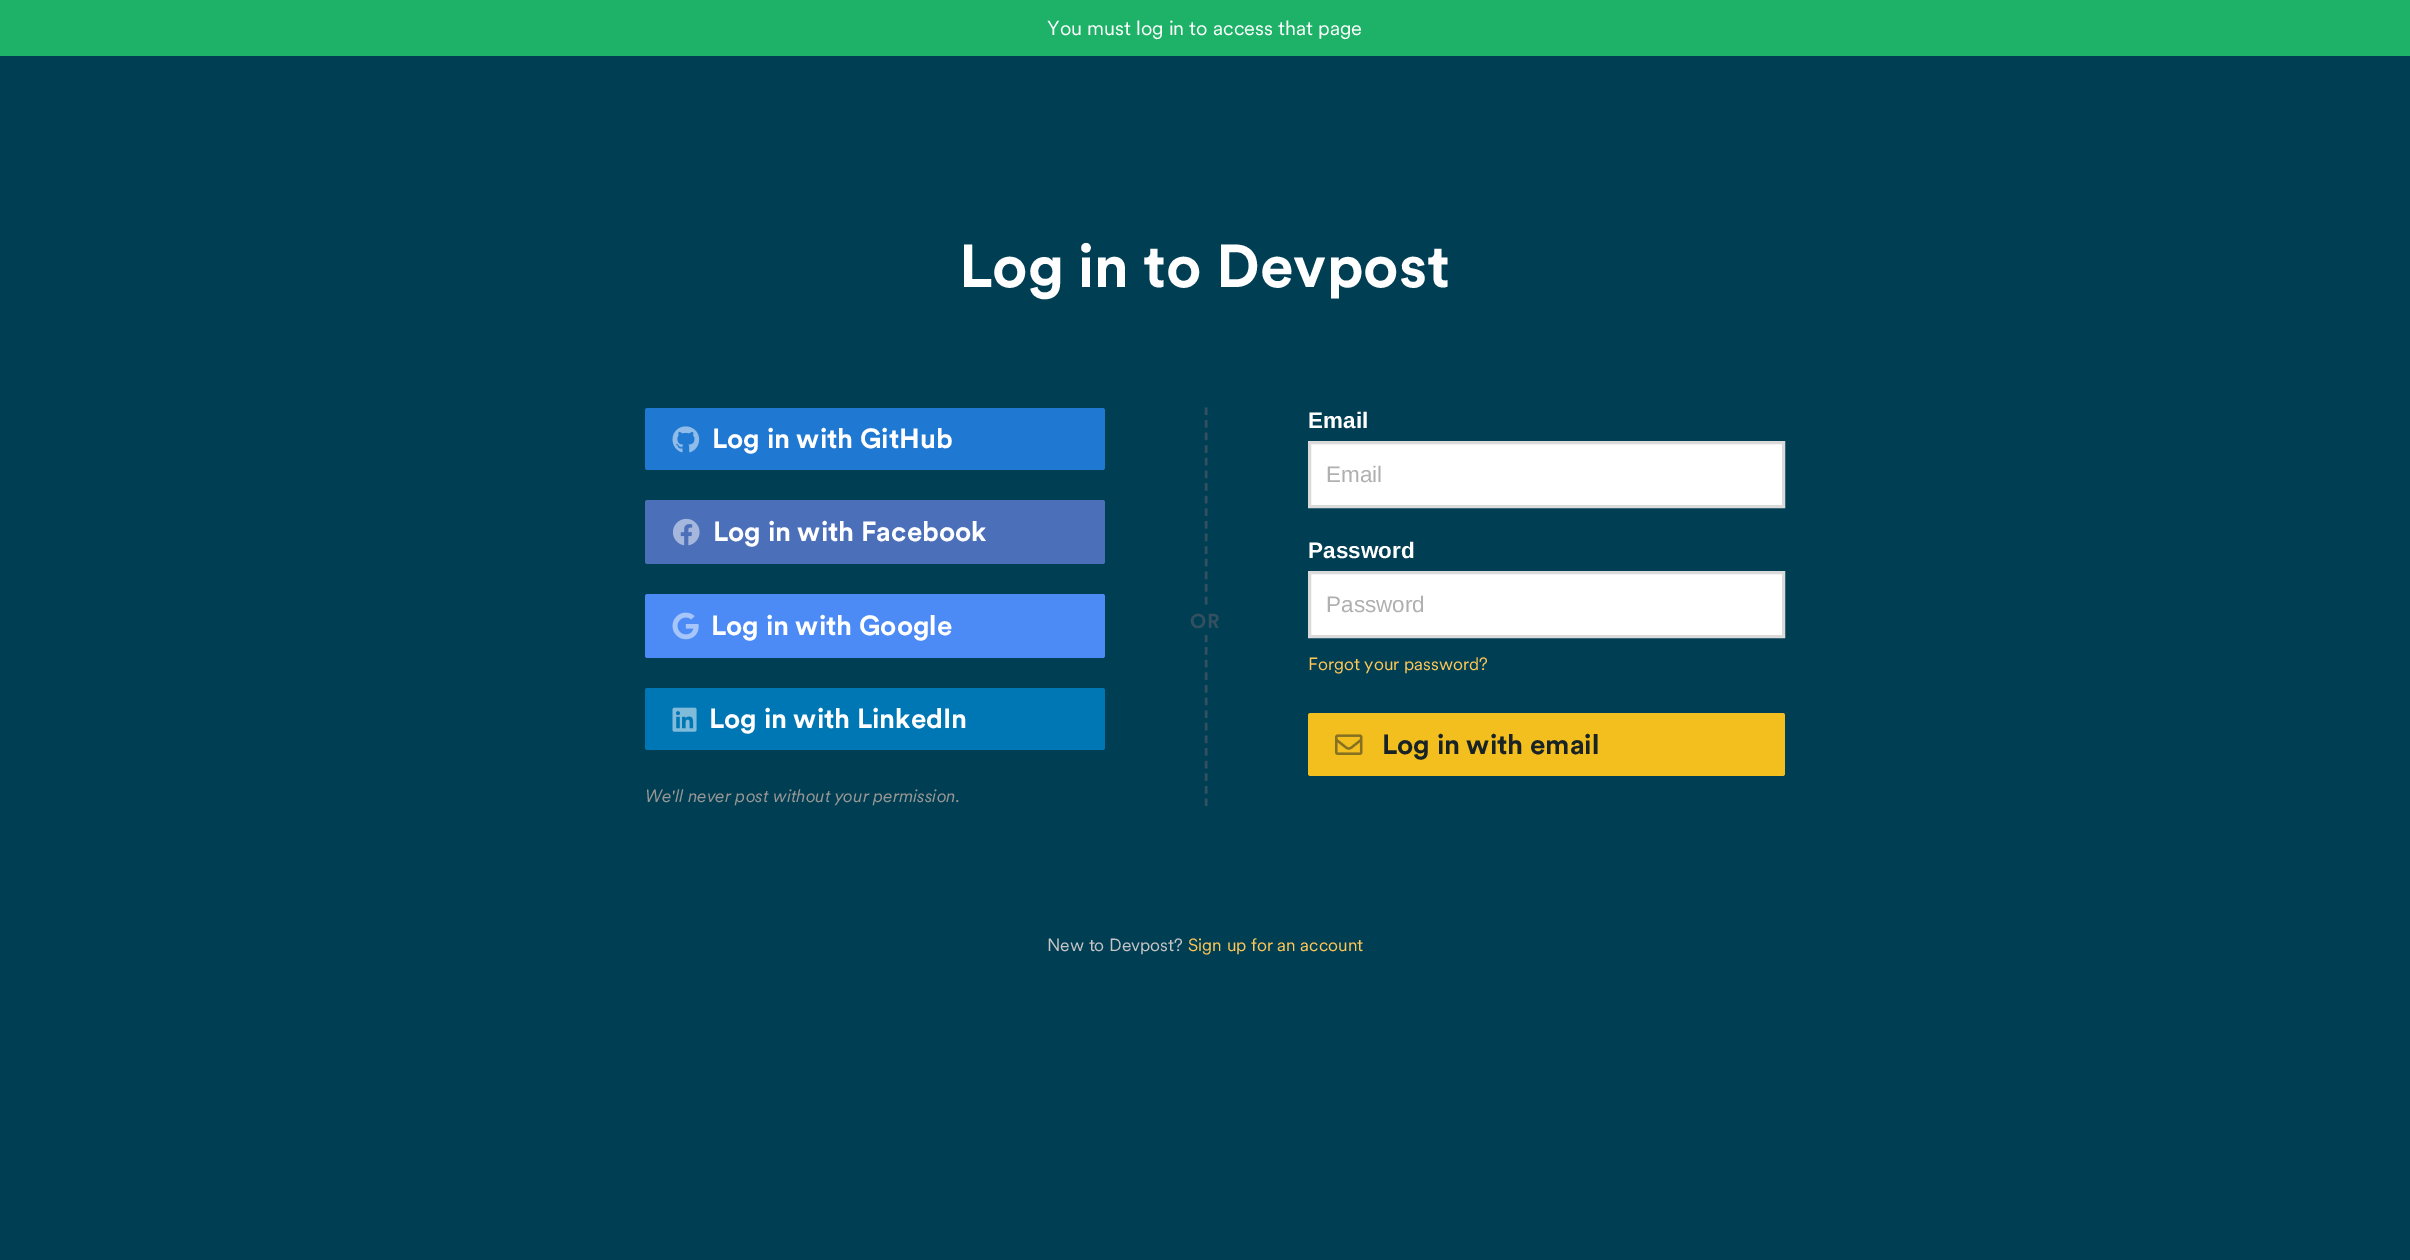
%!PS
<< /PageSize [2410 1260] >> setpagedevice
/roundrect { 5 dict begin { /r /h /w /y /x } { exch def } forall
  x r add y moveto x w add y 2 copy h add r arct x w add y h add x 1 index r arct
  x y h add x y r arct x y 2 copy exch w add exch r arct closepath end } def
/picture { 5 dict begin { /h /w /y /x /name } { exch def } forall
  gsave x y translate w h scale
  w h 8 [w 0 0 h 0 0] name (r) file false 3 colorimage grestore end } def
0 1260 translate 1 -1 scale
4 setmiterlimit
0 0.243 0.329 setrgbcolor
0 0 2410 1260 rectfill
0.118 0.698 0.408 setrgbcolor
0 0 2410 56 rectfill
/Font-Regular [20 0 0 -20 0 0] selectfont
1 setgray
1047 35 moveto (You must log in to access that page) show
/Font-Bold [60 0 0 -60 0 0] selectfont
959 287 moveto (Log in to Devpost) show
0.122 0.471 0.82 setrgbcolor
645 408 460 62 2.5 roundrect fill
(img1.rgb) 672 426 28 27 picture
/Font-Bold [27.5 0 0 -27.5 0 0] selectfont
1 setgray
712 448 moveto (Log in with GitHub) show
0.298 0.435 0.729 setrgbcolor
645 500 460 64 2.5 roundrect fill
(img2.rgb) 673 518 27 28 picture
1 setgray
713 541 moveto (Log in with Facebook) show
0.298 0.545 0.961 setrgbcolor
645 594 460 64 2.5 roundrect fill
(img3.rgb) 672 612 27 28 picture
1 setgray
711 635 moveto (Log in with Google) show
0 0.467 0.71 setrgbcolor
645 688 460 62 2.5 roundrect fill
(img4.rgb) 672 707 25 25 picture
1 setgray
709 728 moveto (Log in with LinkedIn) show
/Font-Italic [17.5 0 0 -17.5 0 0] selectfont
0.6 0.592 0.58 setrgbcolor
645 802 moveto (We'll never post without your permission.) show
0.196 0.314 0.373 setrgbcolor
2.5 setlinewidth
[7.5 5.12] 0 setdash
newpath 1206 407.5 moveto 1206 806 lineto stroke
/LiberationSans-Bold [22.5 0 0 -22.5 0 0] selectfont
1 setgray
1308 428 moveto (Email) show
newpath 1309.5 442.5 moveto 1783.5 442.5 lineto 1783.5 506.5 lineto 1309.5 506.5 lineto closepath gsave fill grestore
0.855 setgray
3 setlinewidth
[] 0 setdash
stroke
/LiberationSans-Regular [22.5 0 0 -22.5 0 0] selectfont
0.69 setgray
1326 482 moveto (Email) show
0 0.243 0.329 setrgbcolor
1204 609 4 26 rectfill
/Font-Bold [20 0 0 -20 0 0] selectfont
0.196 0.314 0.373 setrgbcolor
1190 628 moveto 1 0 (OR) ashow
/LiberationSans-Bold [22.5 0 0 -22.5 0 0] selectfont
1 setgray
1308 558 moveto (Password) show
newpath 1309.5 572.5 moveto 1783.5 572.5 lineto 1783.5 636.5 lineto 1309.5 636.5 lineto closepath gsave fill grestore
0.855 setgray
stroke
/LiberationSans-Regular [22.5 0 0 -22.5 0 0] selectfont
0.69 setgray
1326 612 moveto (Password) show
/Font-Regular [17.5 0 0 -17.5 0 0] selectfont
1 0.78 0.341 setrgbcolor
1308 670 moveto (Forgot your password?) show
0.953 0.749 0.118 setrgbcolor
1308 713 477 63 2.5 roundrect fill
(img5.rgb) 1335 734 28 21 picture
/Font-Bold [27.5 0 0 -27.5 0 0] selectfont
0.098 0.137 0.145 setrgbcolor
1382 754 moveto (Log in with email) show
/Font-Regular [17.5 0 0 -17.5 0 0] selectfont
0.78 0.776 0.773 setrgbcolor
1047 951 moveto (New to Devpost?) show
1 0.78 0.341 setrgbcolor
1188 951 moveto (Sign up for an account) show
showpage
